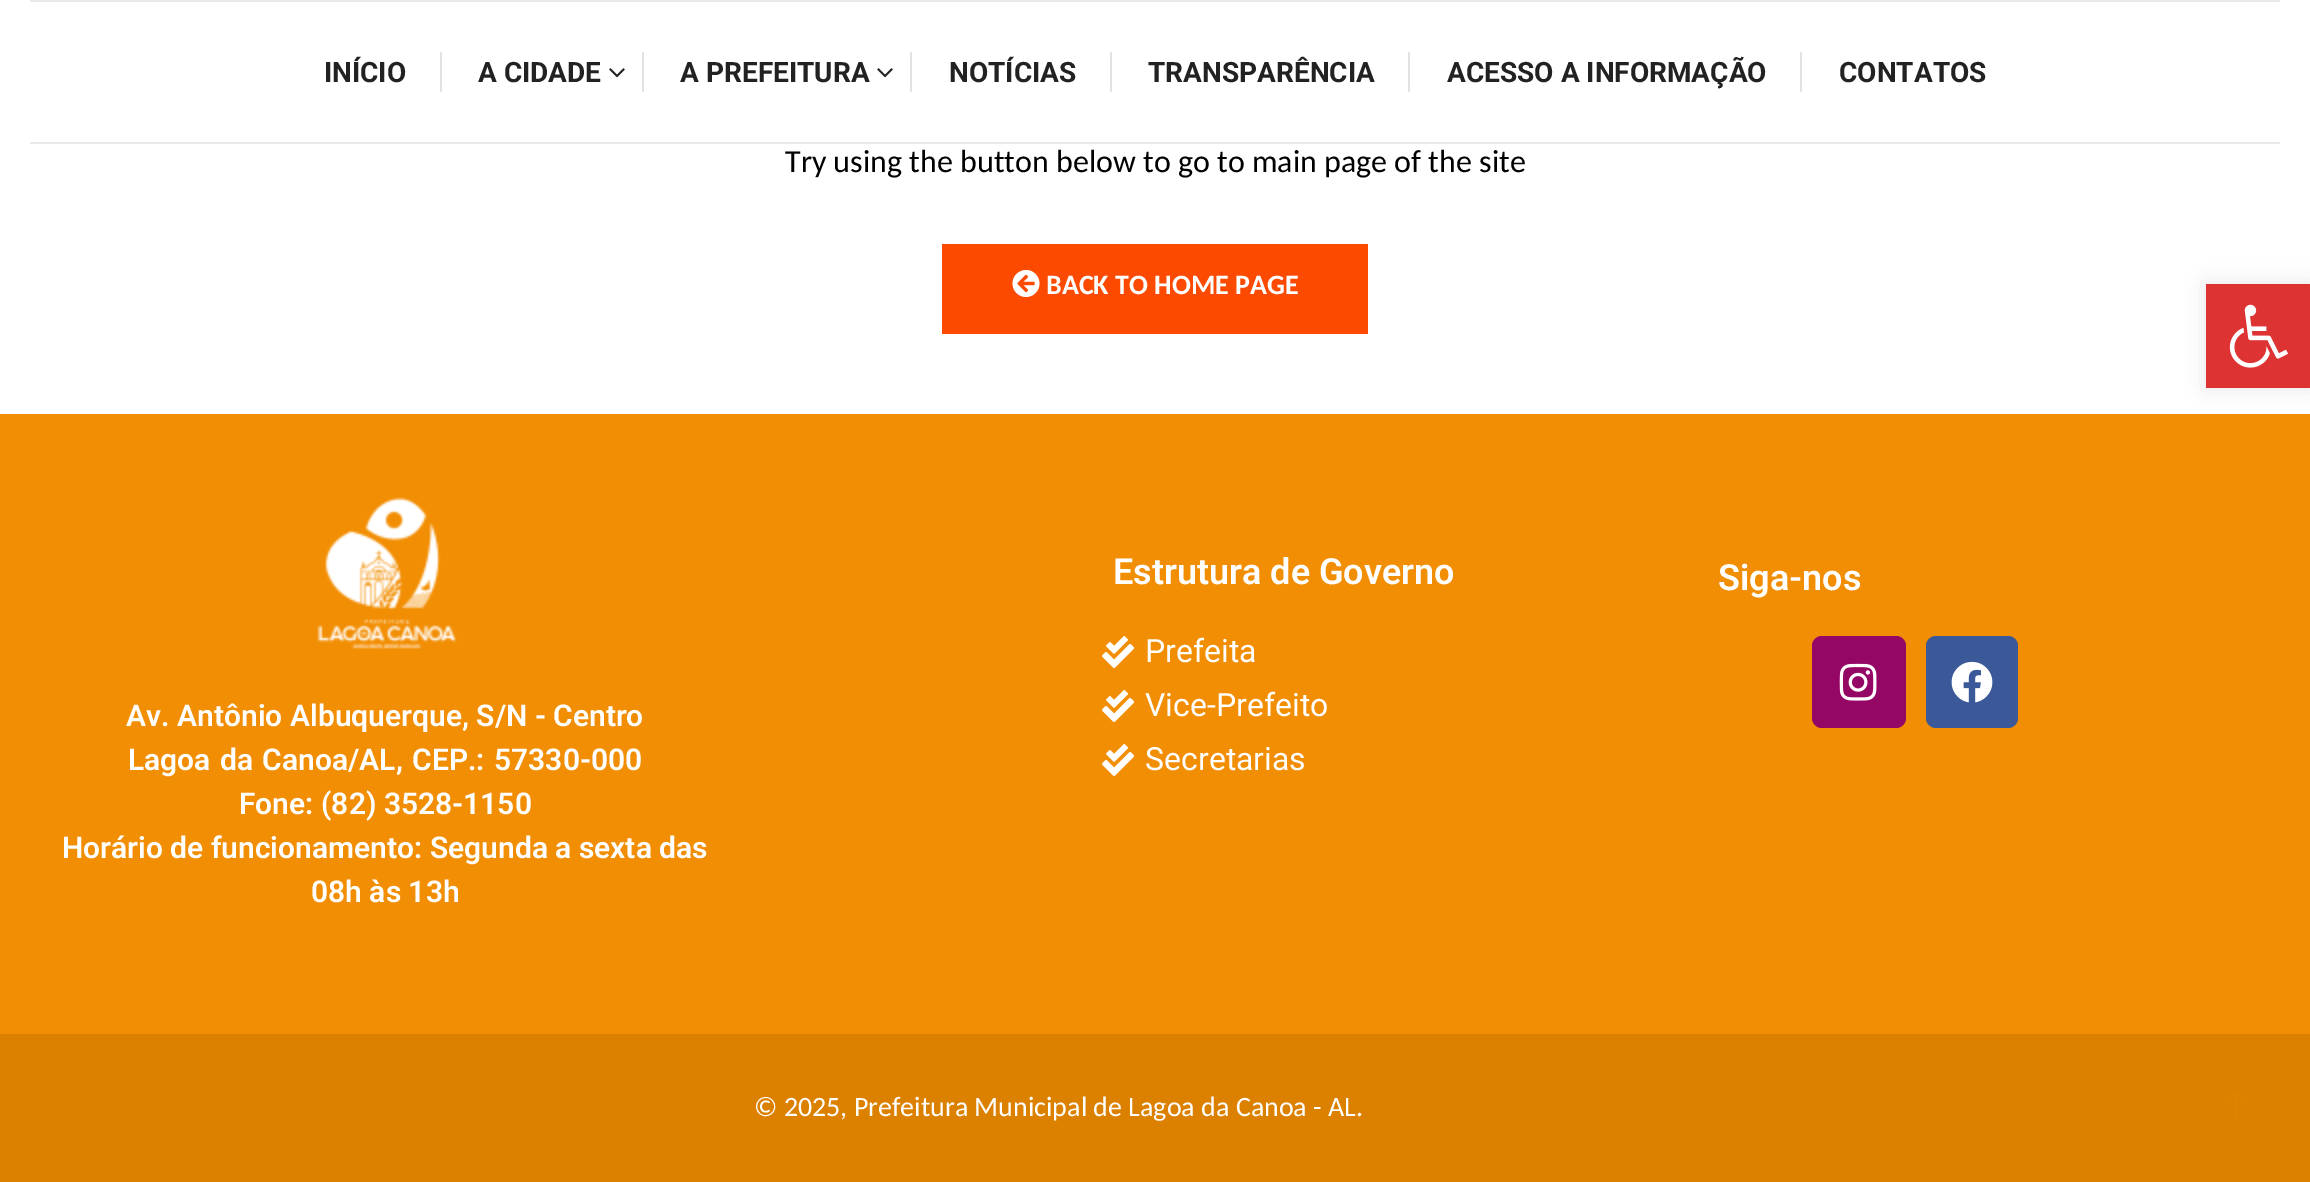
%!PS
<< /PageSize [2310 1182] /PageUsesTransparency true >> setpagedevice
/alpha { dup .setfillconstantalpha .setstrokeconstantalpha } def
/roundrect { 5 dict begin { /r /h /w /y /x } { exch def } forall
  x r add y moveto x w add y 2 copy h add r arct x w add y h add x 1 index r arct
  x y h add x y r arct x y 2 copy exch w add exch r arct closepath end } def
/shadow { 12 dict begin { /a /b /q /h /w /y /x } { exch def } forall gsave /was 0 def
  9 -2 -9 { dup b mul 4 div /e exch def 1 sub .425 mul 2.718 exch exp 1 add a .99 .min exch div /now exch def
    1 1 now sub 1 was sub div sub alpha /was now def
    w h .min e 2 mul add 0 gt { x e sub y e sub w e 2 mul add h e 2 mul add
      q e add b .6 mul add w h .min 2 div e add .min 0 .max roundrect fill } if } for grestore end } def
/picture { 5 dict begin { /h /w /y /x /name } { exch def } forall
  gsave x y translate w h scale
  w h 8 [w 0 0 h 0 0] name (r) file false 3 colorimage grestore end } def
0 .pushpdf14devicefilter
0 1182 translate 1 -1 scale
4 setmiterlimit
1 setgray
0 0 2310 1182 rectfill
0.918 setgray
30 0 2250 2 rectfill
30 142 2250 2 rectfill
/Roboto-Bold [28 0 0 -28 0 0] selectfont
0.133 setgray
324 82 moveto (INÍCIO) show
0.886 setgray
440 52 2 40 rectfill
0.133 setgray
478 82 moveto (A CIDADE) show
(img1.rgb) 609 68 16 10 picture
0.886 setgray
642 52 2 40 rectfill
0.133 setgray
680 82 moveto (A PREFEITURA) show
(img1.rgb) 877 68 16 10 picture
0.886 setgray
910 52 2 40 rectfill
0.133 setgray
949 82 moveto (NOTÍCIAS) show
0.886 setgray
1110 52 2 40 rectfill
0.133 setgray
1148 82 moveto (TRANSPARÊNCIA) show
0.886 setgray
1408 52 2 40 rectfill
0.133 setgray
1447 82 moveto (ACESSO A INFORMAÇÃO) show
0.886 setgray
1800 52 2 40 rectfill
0.133 setgray
1839 82 moveto (CONTATOS) show
/Carlito-Regular [32 0 0 -32 0 0] selectfont
0 setgray
785 172 moveto (Try using the button below to go to main page of the site) show
0.988 0.29 0 setrgbcolor
942 244 426 90 rectfill
(img2.rgb) 1012 270 28 27 picture
/Carlito-Bold [28 0 0 -28 0 0] selectfont
1 setgray
1046 294 moveto (BACK TO HOME PAGE) show
0.949 0.557 0.016 setrgbcolor
0 414 2310 620 rectfill
/Roboto-SemiBold [36 0 0 -36 0 0] selectfont
1 setgray
1113 584 moveto (Estrutura de Governo) show
(img3.rgb) 1102 636 32 32 picture
/Roboto-Regular [32 0 0 -32 0 0] selectfont
1145 662 moveto (Prefeita) show
(img3.rgb) 1102 690 32 32 picture
1145 716 moveto (Vice-Prefeito) show
(img3.rgb) 1102 744 32 32 picture
1145 770 moveto (Secretarias) show
/Roboto-SemiBold [36 0 0 -36 0 0] selectfont
1718 590 moveto (Siga-nos) show
0.584 0.027 0.396 setrgbcolor
1812 636 94 92 10 roundrect fill
(img4.rgb) 1839 663 38 38 picture
0.231 0.349 0.596 setrgbcolor
1926 636 92 92 10 roundrect fill
(img5.rgb) 1951 661 42 42 picture
(img6.rgb) 317 497 140 153 picture
/Roboto-SemiBold [30 0 0 -30 0 0] selectfont
1 setgray
126 726 moveto (Av. Antônio Albuquerque, S/N - Centro) show
128 770 moveto 2 0 32 (Lagoa da Canoa/AL, CEP.: 57330-000) widthshow
239 814 moveto (Fone: \(82\) 3528-1150) show
62 858 moveto (Horário de funcionamento: Segunda a sexta das) show
311 902 moveto (08h às 13h) show
0.863 0.502 0 setrgbcolor
0 1034 2310 148 rectfill
/Carlito-Regular [28 0 0 -28 0 0] selectfont
1 setgray
754 1116 moveto (© 2025, Prefeitura Municipal de Lagoa da Canoa - AL.) show
(img7.rgb) 2227 1093 18 26 picture
0 setgray
2206 284 104 104 0 10 0.1 shadow
0.867 0.2 0.2 setrgbcolor
2206 284 104 104 rectfill
(img8.rgb) 2229 304 59 64 picture
.poppdf14devicefilter showpage
